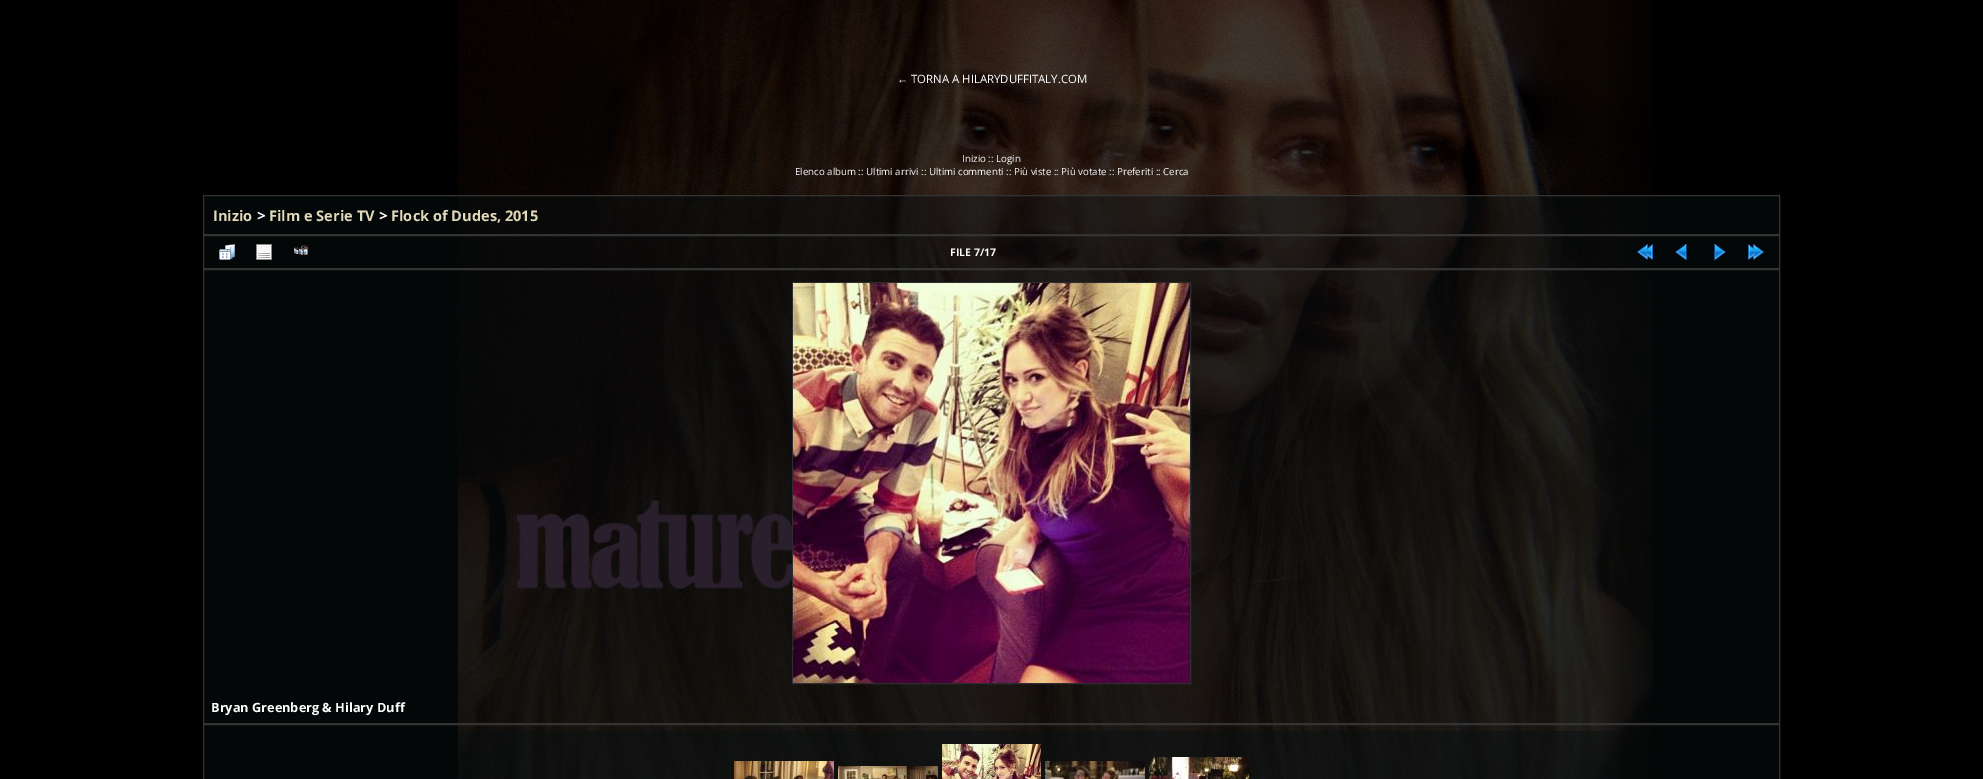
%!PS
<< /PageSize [1983 779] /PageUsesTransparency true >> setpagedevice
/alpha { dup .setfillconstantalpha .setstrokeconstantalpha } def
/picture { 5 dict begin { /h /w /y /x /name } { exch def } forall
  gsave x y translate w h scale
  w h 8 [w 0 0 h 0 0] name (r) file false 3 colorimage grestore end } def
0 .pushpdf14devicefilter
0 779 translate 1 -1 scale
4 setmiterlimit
0 setgray
0 0 1983 779 rectfill
(img1.rgb) 452 0 1201 779 picture
/LiberationSans-Regular [11.4 0 0 -11.4 0 0] selectfont
1 setgray
897 83 moveto (←) show
/OpenSans-Regular [11.4 0 0 -11.4 0 0] selectfont
911 83 moveto (TORNA A HILARYDUFFITALY.COM) show
/OpenSans-Regular [9.7 0 0 -9.7 0 0] selectfont
962 162 moveto (Inizio :: Login) show
795 175 moveto (Elenco album :: Ultimi arrivi :: Ultimi commenti :: Più viste :: Più votate :: Preferiti :: Cerca) show
0.49 alpha
0.031 0.055 0.063 setrgbcolor
newpath 203.5 195.5 moveto 1779.5 195.5 lineto 1779.5 234.5 lineto 203.5 234.5 lineto closepath fill
1 alpha
0.2 setgray
newpath 203.5 195.5 moveto 1779.5 195.5 lineto 1779.5 234.5 lineto 203.5 234.5 lineto closepath stroke
/OpenSans-Bold [14.6 0 0 -14.6 0 0] selectfont
0.882 0.847 0.725 setrgbcolor
213 221 moveto (Inizio) show
/OpenSans-Bold [15 0 0 -15 0 0] selectfont
1 setgray
257 221 moveto (>) show
/OpenSans-Bold [14.6 0 0 -14.6 0 0] selectfont
0.882 0.847 0.725 setrgbcolor
269 221 moveto (Film e Serie TV) show
/OpenSans-Bold [15 0 0 -15 0 0] selectfont
1 setgray
379 221 moveto (>) show
/OpenSans-Bold [14.6 0 0 -14.6 0 0] selectfont
0.882 0.847 0.725 setrgbcolor
391 221 moveto (Flock of Dudes, 2015) show
0.49 alpha
0.031 0.055 0.063 setrgbcolor
newpath 203.5 235.5 moveto 1779.5 235.5 lineto 1779.5 268.5 lineto 203.5 268.5 lineto closepath fill
1 alpha
0.2 setgray
newpath 203.5 235.5 moveto 1779.5 235.5 lineto 1779.5 268.5 lineto 203.5 268.5 lineto closepath stroke
(img2.rgb) 219 244 16 16 picture
(img3.rgb) 256 244 16 16 picture
(img4.rgb) 293 245 16 11 picture
/OpenSans-Bold [10.5 0 0 -10.5 0 0] selectfont
1 setgray
950 256 moveto (FILE 7/17) show
(img5.rgb) 1637 244 16 16 picture
(img6.rgb) 1675 244 12 16 picture
(img7.rgb) 1714 244 12 16 picture
(img8.rgb) 1748 244 16 16 picture
0.49 alpha
0.031 0.055 0.063 setrgbcolor
newpath 203.5 269.5 moveto 1779.5 269.5 lineto 1779.5 723.5 lineto 203.5 723.5 lineto closepath fill
1 alpha
0.2 setgray
newpath 203.5 269.5 moveto 1779.5 269.5 lineto 1779.5 723.5 lineto 203.5 723.5 lineto closepath stroke
0.176 0.173 0.2 setrgbcolor
792.5 282.5 398 401 rectstroke
(img9.rgb) 793 283 397 400 picture
/OpenSans-Bold [12.75 0 0 -12.75 0 0] selectfont
1 setgray
211 712 moveto (Bryan Greenberg & Hilary Duff) show
0.49 alpha
0.031 0.055 0.063 setrgbcolor
newpath 203.5 724.5 moveto 1779.5 724.5 lineto 1779.5 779.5 lineto 203.5 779.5 lineto closepath fill
1 alpha
0.2 setgray
newpath 203.5 724.5 moveto 1779.5 724.5 lineto 1779.5 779.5 lineto 203.5 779.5 lineto closepath stroke
0.49 alpha
0.031 0.055 0.063 setrgbcolor
458 731 1162 48 rectfill
1 alpha
(img10.rgb) 734 761 100 18 picture
(img11.rgb) 838 766 100 13 picture
(img12.rgb) 942 744 99 35 picture
(img13.rgb) 1045 761 100 18 picture
(img14.rgb) 1149 757 100 22 picture
.poppdf14devicefilter showpage
